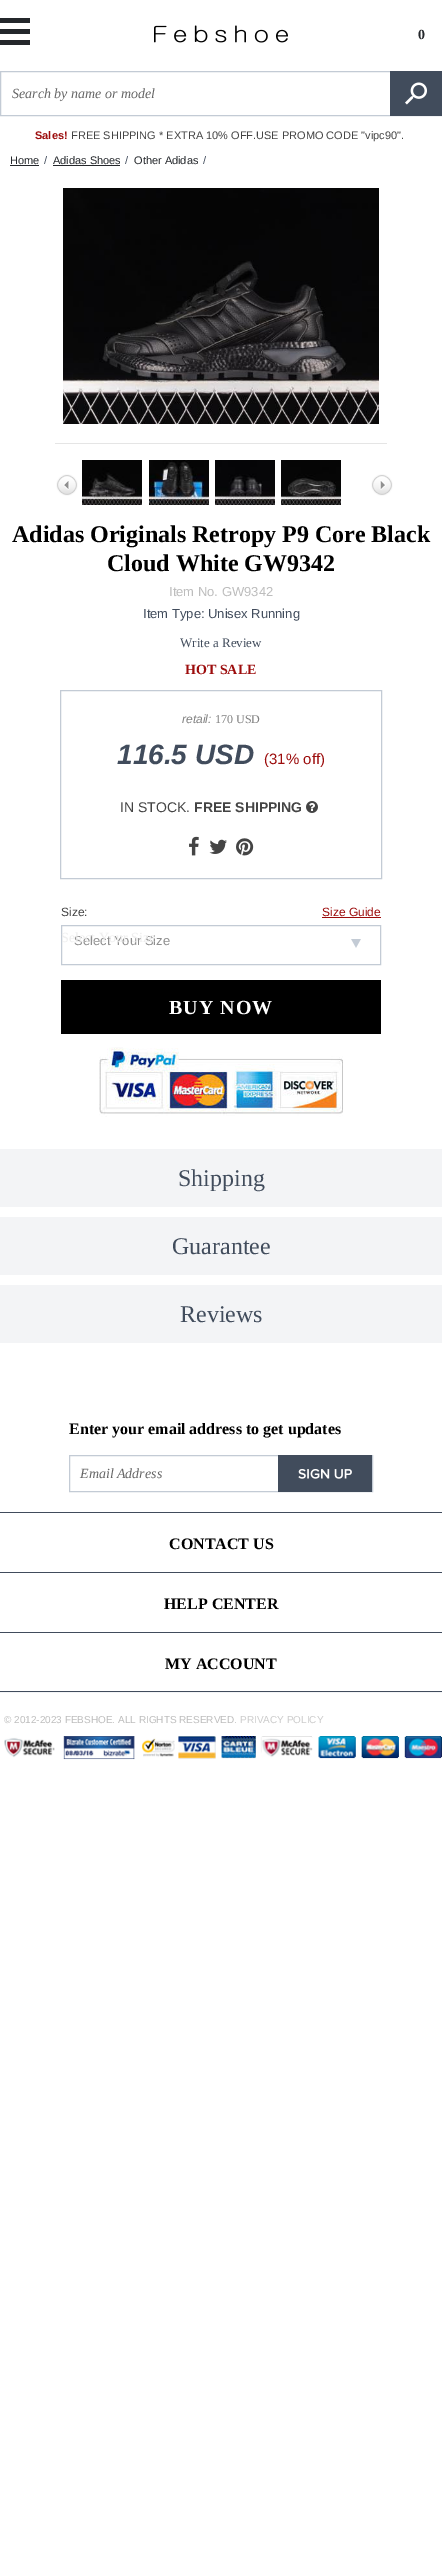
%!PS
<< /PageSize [442 2555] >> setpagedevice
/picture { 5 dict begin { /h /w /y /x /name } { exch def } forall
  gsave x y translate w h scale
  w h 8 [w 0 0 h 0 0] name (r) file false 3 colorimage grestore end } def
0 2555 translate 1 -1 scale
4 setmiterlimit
1 setgray
0 0 442 2555 rectfill
(img1.rgb) 0 18 30 27 picture
(img2.rgb) 154 25 134 18 picture
/LiberationSerif-Bold [14 0 0 -14 0 0] selectfont
0.141 0.153 0.169 setrgbcolor
418 39 moveto (0) show
0.765 0.796 0.835 setrgbcolor
0.5 71.5 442 44 rectstroke
/LiberationSerif-Italic [14 0 0 -14 0 0] selectfont
0.4 setgray
12 98 moveto (Search by name or model) show
(img3.rgb) 390 71 52 45 picture
/LiberationSans-Bold [11 0 0 -11 0 0] selectfont
0.612 0.047 0.047 setrgbcolor
35 139 moveto (Sales!) show
/LiberationSans-Regular [11 0 0 -11 0 0] selectfont
0.267 setgray
71 139 moveto (FREE SHIPPING * EXTRA 10% OFF.USE PROMO CODE "vipc90".) show
0.141 0.153 0.169 setrgbcolor
10 164 moveto (Home) show
10 165 29 1 rectfill
0.255 0.298 0.361 setrgbcolor
44 164 moveto (/) show
0.141 0.153 0.169 setrgbcolor
53 164 moveto (Adidas Shoes) show
53 165 67 1 rectfill
0.255 0.298 0.361 setrgbcolor
125 164 moveto (/) show
0.141 0.153 0.169 setrgbcolor
134 164 moveto (Other Adidas) show
0.255 0.298 0.361 setrgbcolor
203 164 moveto (/) show
(img4.rgb) 63 188 316 236 picture
0.898 setgray
55 443 332 1 rectfill
(img5.rgb) 56 474 22 22 picture
(img6.rgb) 82 460 60 45 picture
(img7.rgb) 149 460 60 45 picture
(img8.rgb) 215 460 60 45 picture
(img9.rgb) 281 460 60 45 picture
(img10.rgb) 371 474 22 22 picture
/LiberationSerif-Bold [24 0 0 -24 0 0] selectfont
0 setgray
12 542 moveto (Adidas Originals Retropy P9 Core Black) show
107 571 moveto (Cloud White GW9342) show
/LiberationSans-Regular [13 0 0 -13 0 0] selectfont
0.741 setgray
169 596 moveto (Item No. GW9342) show
0.255 0.298 0.361 setrgbcolor
143 618 moveto (Item Type: Unisex Running) show
/LiberationSerif-Regular [13 0 0 -13 0 0] selectfont
180 647 moveto (Write a Review) show
/LiberationSerif-Bold [14 0 0 -14 0 0] selectfont
0.612 0.047 0.047 setrgbcolor
185 674 moveto (HOT SALE) show
0.765 0.796 0.835 setrgbcolor
60.5 690.5 321 188 rectstroke
/LiberationSans-Italic [12 0 0 -12 0 0] selectfont
0.502 setgray
182 723 moveto (retail:) show
/LiberationSerif-Regular [12 0 0 -12 0 0] selectfont
215 723 moveto (170 USD) show
/LiberationSans-BoldItalic [28 0 0 -28 0 0] selectfont
0.255 0.298 0.361 setrgbcolor
117 764 moveto (116.5 USD) show
/LiberationSans-Regular [15 0 0 -15 0 0] selectfont
0.612 0.047 0.047 setrgbcolor
264 764 moveto (\(31% off\)) show
/LiberationSans-Regular [14 0 0 -14 0 0] selectfont
0.267 setgray
120 812 moveto (IN STOCK.) show
/LiberationSans-Bold [14 0 0 -14 0 0] selectfont
194 812 moveto (FREE SHIPPING) show
(img11.rgb) 306 801 12 12 picture
(img12.rgb) 189 836 10 20 picture
(img13.rgb) 209 839 18 15 picture
(img14.rgb) 236 838 18 18 picture
/LiberationSans-Regular [12 0 0 -12 0 0] selectfont
61 916 moveto (Size:) show
0.612 0.047 0.047 setrgbcolor
322 916 moveto (Size Guide) show
322 917 59 1 rectfill
(img15.rgb) 351 939 10 9 picture
0.765 0.796 0.835 setrgbcolor
61.5 925.5 319 39 rectstroke
/LiberationSans-Regular [13 0 0 -13 0 0] selectfont
0.561 setgray
74 945 moveto (Select Your Size) show
/LiberationSerif-Regular [14 0 0 -14 0 0] selectfont
0.933 setgray
61 942 moveto (Select Your Size) show
0 setgray
61 980 320 54 rectfill
/LiberationSerif-Bold [20 0 0 -20 0 0] selectfont
1 setgray
169 1014 moveto 1 0 (BUY NOW) ashow
(img16.rgb) 99 1047 244 70 picture
0.953 0.957 0.965 setrgbcolor
0 1149 442 58 rectfill
/LiberationSerif-Regular [24 0 0 -24 0 0] selectfont
0.255 0.298 0.361 setrgbcolor
178 1186 moveto (Shipping) show
0.953 0.957 0.965 setrgbcolor
0 1217 442 58 rectfill
0.255 0.298 0.361 setrgbcolor
172 1254 moveto (Guarantee) show
0.953 0.957 0.965 setrgbcolor
0 1285 442 58 rectfill
0.255 0.298 0.361 setrgbcolor
180 1322 moveto (Reviews) show
/LiberationSerif-Bold [16 0 0 -16 0 0] selectfont
0 setgray
69 1434 moveto (Enter your email address to get updates) show
0.765 0.796 0.835 setrgbcolor
69.5 1455.5 303 36 rectstroke
/LiberationSerif-Italic [14 0 0 -14 0 0] selectfont
0.4 setgray
80 1478 moveto (Email Address) show
(img17.rgb) 278 1455 94 37 picture
0.255 0.298 0.361 setrgbcolor
0 1512 442 1 rectfill
/LiberationSerif-Bold [16 0 0 -16 0 0] selectfont
0 setgray
169 1549 moveto (CONTACT US) show
0.255 0.298 0.361 setrgbcolor
0 1572 442 1 rectfill
0 setgray
164 1609 moveto (HELP CENTER) show
0.255 0.298 0.361 setrgbcolor
0 1632 442 1 rectfill
0 1691 442 1 rectfill
0 setgray
165 1669 moveto (MY ACCOUNT) show
0.953 0.957 0.965 setrgbcolor
0 1692 442 1 rectfill
/LiberationSans-Regular [10 0 0 -10 0 0] selectfont
0.741 setgray
4 1723 moveto (© 2012-2023 FEBSHOE. ALL RIGHTS RESERVED.) show
0.8 setgray
240 1723 moveto (PRIVACY POLICY) show
(img18.rgb) 4 1736 438 24 picture
showpage
